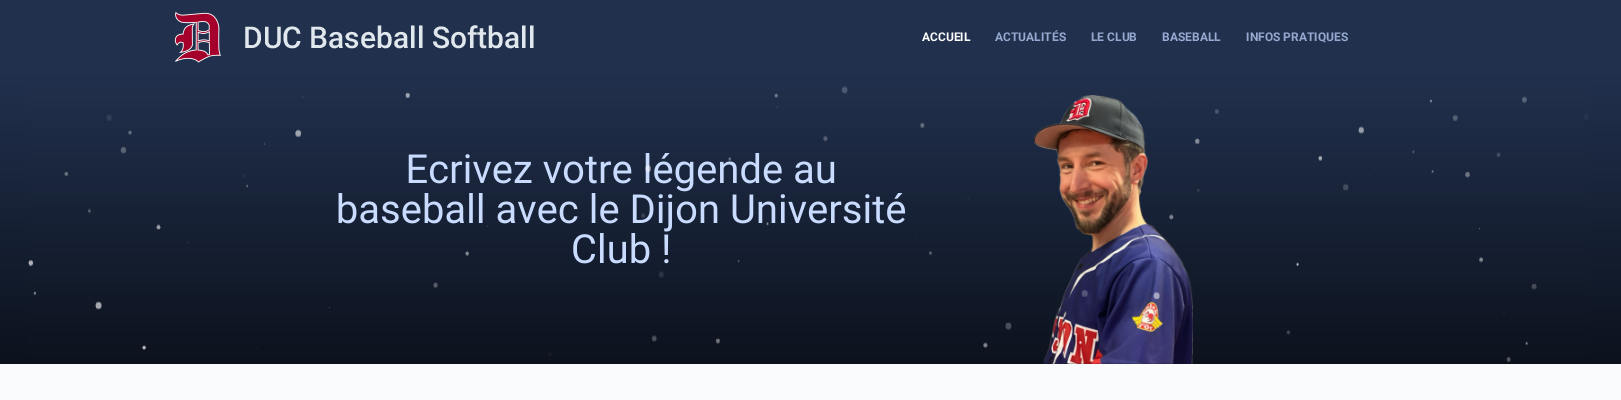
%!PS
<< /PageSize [1621 400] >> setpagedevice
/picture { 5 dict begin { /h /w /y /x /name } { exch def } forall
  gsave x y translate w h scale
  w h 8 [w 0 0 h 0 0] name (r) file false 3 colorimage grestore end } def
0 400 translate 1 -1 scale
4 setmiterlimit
0.98 0.984 0.988 setrgbcolor
0 0 1621 400 rectfill
0.129 0.188 0.302 setrgbcolor
0 0 1621 75 rectfill
(img1.rgb) 174 11 47 52 picture
/Roboto-Medium [30 0 0 -30 0 0] selectfont
0.882 0.91 0.929 setrgbcolor
243 48 moveto (DUC Baseball Softball) show
/Roboto-Bold [12 0 0 -12 0 0] selectfont
1 0.996 0.996 setrgbcolor
922 41 moveto (ACCUEIL) show
0.584 0.663 0.82 setrgbcolor
995 41 moveto (ACTUALITÉS) show
1091 41 moveto (LE CLUB) show
1162 41 moveto (BASEBALL) show
1246 41 moveto (INFOS PRATIQUES) show
gsave newpath 0 75 moveto 1621 75 lineto 1621 364 lineto 0 364 lineto closepath clip newpath
<< /ShadingType 2 /ColorSpace /DeviceRGB /Coords [811 75 811 364] /Extend [true true] /Function << /FunctionType 2 /Domain [0 1] /C0 [0.129 0.188 0.302] /C1 [0.047 0.071 0.114] /N 1 >> >> shfill grestore
/Roboto-Regular [40 0 0 -40 0 0] selectfont
0.788 0.859 1 setrgbcolor
405 183 moveto (Ecrivez votre légende au) show
336 223 moveto (baseball avec le Dijon Université) show
571 263 moveto (Club !) show
(img3.rgb) 1034 95 159 269 picture
(img2.rgb) 28 86 1561 276 picture
showpage
